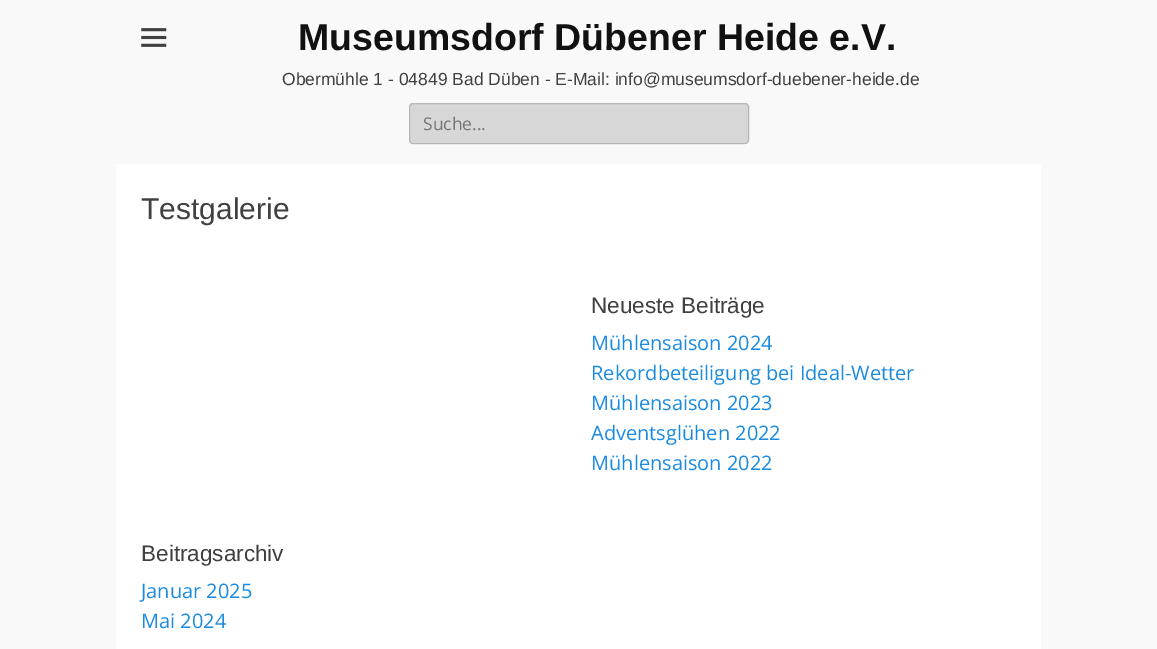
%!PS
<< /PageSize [1157 649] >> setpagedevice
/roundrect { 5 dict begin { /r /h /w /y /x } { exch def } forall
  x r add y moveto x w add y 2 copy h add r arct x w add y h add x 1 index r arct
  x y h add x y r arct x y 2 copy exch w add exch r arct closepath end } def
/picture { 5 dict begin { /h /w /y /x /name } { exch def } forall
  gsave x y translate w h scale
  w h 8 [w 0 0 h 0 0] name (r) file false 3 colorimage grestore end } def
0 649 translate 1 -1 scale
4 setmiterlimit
0.976 setgray
0 0 1157 649 rectfill
(img1.rgb) 141 28 26 19 picture
/LiberationSans-Bold [37.5 0 0 -37.5 0 0] selectfont
0.067 setgray
298 50 moveto (Museumsdorf Dübener Heide e.V.) show
/LiberationSans-Regular [17.5 0 0 -17.5 0 0] selectfont
0.251 setgray
282 85 moveto (Obermühle 1 - 04849 Bad Düben - E-Mail: info@museumsdorf-duebener-heide.de) show
1 setgray
newpath 409 141 moveto 409 143 411 145 413 145 curveto 745 145 lineto 747 145 749 143 749 141 curveto 749 107 lineto 749 140 lineto 749 142 747 144 745 144 curveto 412 144 lineto 411 144 410 143 409 141 curveto closepath fill
0.843 setgray
409.5 103.5 339 40 3.5 roundrect gsave fill grestore
0.714 setgray
stroke
/OpenSans-Regular [17.5 0 0 -17.5 0 0] selectfont
0.459 setgray
423 130 moveto (Suche...) show
1 setgray
116 164 925 485 rectfill
/LiberationSans-Regular [30 0 0 -30 0 0] selectfont
0.251 setgray
141 219 moveto (Testgalerie) show
/LiberationSans-Regular [22.5 0 0 -22.5 0 0] selectfont
591 313 moveto (Neueste Beiträge) show
/OpenSans-Regular [20 0 0 -20 0 0] selectfont
0.106 0.545 0.878 setrgbcolor
591 350 moveto (Mühlensaison 2024) show
591 380 moveto (Rekordbeteiligung bei Ideal-Wetter) show
591 410 moveto (Mühlensaison 2023) show
591 440 moveto (Adventsglühen 2022) show
591 470 moveto (Mühlensaison 2022) show
/LiberationSans-Regular [22.5 0 0 -22.5 0 0] selectfont
0.251 setgray
141 561 moveto (Beitragsarchiv) show
/OpenSans-Regular [20 0 0 -20 0 0] selectfont
0.106 0.545 0.878 setrgbcolor
141 598 moveto (Januar 2025) show
141 628 moveto (Mai 2024) show
showpage
